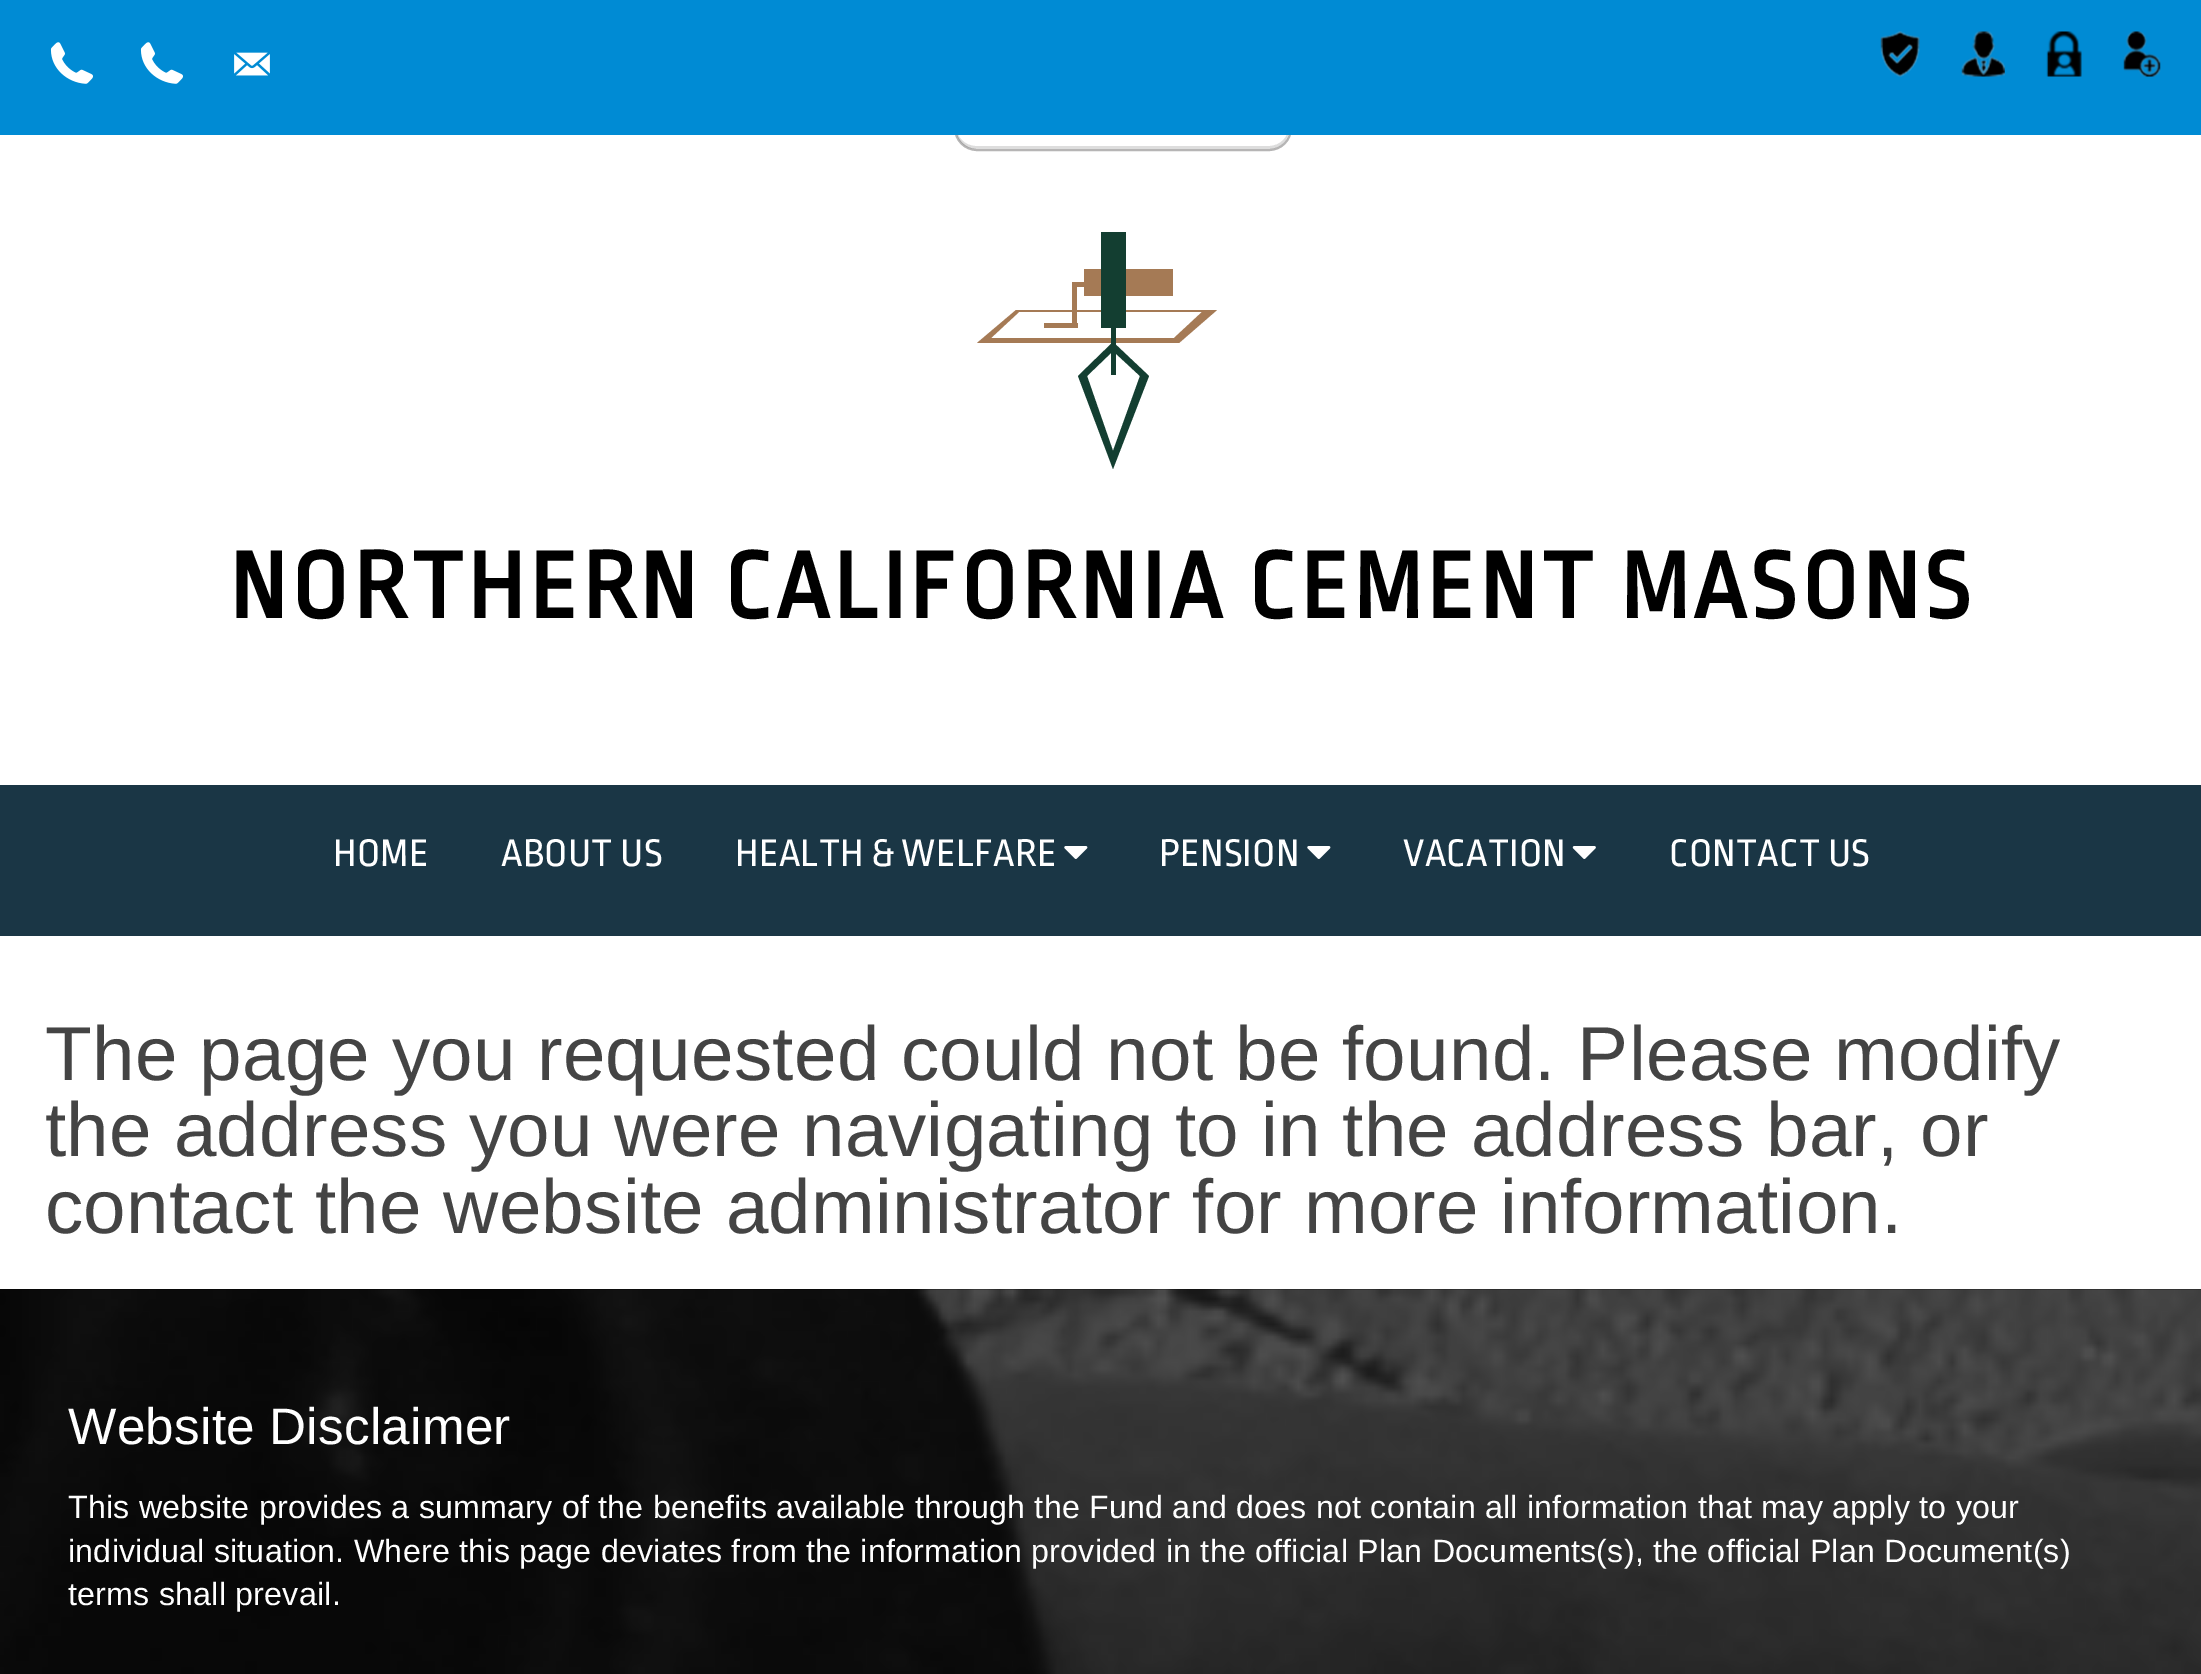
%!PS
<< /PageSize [2201 1674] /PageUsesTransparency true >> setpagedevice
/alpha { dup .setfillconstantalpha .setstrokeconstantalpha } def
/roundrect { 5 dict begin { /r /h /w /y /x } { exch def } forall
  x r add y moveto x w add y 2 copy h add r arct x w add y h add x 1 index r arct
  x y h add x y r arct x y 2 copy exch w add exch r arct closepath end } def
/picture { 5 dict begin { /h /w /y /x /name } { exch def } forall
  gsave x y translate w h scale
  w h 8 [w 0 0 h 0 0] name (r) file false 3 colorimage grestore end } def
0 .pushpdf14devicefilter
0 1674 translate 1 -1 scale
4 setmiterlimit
1 setgray
0 0 2201 1674 rectfill
0.867 setgray
newpath 956 126 moveto 956 129 lineto 956 140 965 149 976 149 curveto 1269 149 lineto 1280 149 1289 140 1289 129 curveto 1289 126 lineto 1289 137 1280 146 1269 146 curveto 976 146 lineto 965 146 956 137 956 126 curveto closepath fill
0.31 alpha
0.071 0.067 0.067 setrgbcolor
2 setlinewidth
955 84 336 66 22 roundrect stroke
1 alpha
0 0.545 0.831 setrgbcolor
0 0 2201 135 rectfill
(img1.rgb) 50 42 43 42 picture
(img1.rgb) 140 42 43 42 picture
(img2.rgb) 234 52 36 24 picture
(img3.rgb) 1880 31 40 46 picture
(img4.rgb) 1961 31 44 46 picture
(img5.rgb) 2046 31 36 46 picture
(img6.rgb) 2123 31 38 46 picture
0.647 0.478 0.333 setrgbcolor
1084 269 89 27 rectfill
1072 282 12 5 rectfill
1072 286 5 42 rectfill
1044 323 34 5 rectfill
newpath 1217 310 moveto 1016 310 lineto 977 343 lineto 1179 343 lineto closepath 1174 338 moveto 991 338 lineto 1019 312 lineto 1202 312 lineto closepath fill
0.075 0.243 0.192 setrgbcolor
1101 232 25 96 rectfill
1111 328 5 47 rectfill
newpath 1113 342 moveto 1078 376 lineto 1113 469 lineto 1149 376 lineto closepath 1113 451 moveto 1087 376 lineto 1113 351 lineto 1140 376 lineto closepath fill
/RopaSans-Bold [99 0 0 -99 0 0] selectfont
0 setgray
229 618 moveto 4.5 0 (NORTHERN CALIFORNIA CEMENT MASONS) ashow
0.102 0.212 0.271 setrgbcolor
0 785 2201 151 rectfill
/RopaSans-Regular [40.5 0 0 -40.5 0 0] selectfont
1 setgray
333 866 moveto 0.23 0 (HOME) ashow
501 866 moveto 0.23 0 (ABOUT US) ashow
735 866 moveto 0.23 0 (HEALTH & WELFARE) ashow
(img7.rgb) 1064 846 24 13 picture
1159 866 moveto 0.23 0 (PENSION) ashow
(img7.rgb) 1307 846 24 13 picture
1403 866 moveto 0.23 0 (VACATION) ashow
(img8.rgb) 1572 846 24 13 picture
1669 866 moveto 0.23 0 (CONTACT US) ashow
/LiberationSans-Regular [76.5 0 0 -76.5 0 0] selectfont
0.267 setgray
45 1080 moveto 0.23 0 (The page you requested could not be found. Please modify) ashow
45 1156 moveto 0.23 0 (the address you were navigating to in the address bar, or) ashow
45 1233 moveto 0.23 0 (contact the website administrator for more information.) ashow
(img9.rgb) 0 1289 2201 385 picture
/LiberationSans-Regular [51.25 0 0 -51.25 0 0] selectfont
1 setgray
68 1444 moveto 0.23 0 (Website Disclaimer) ashow
/LiberationSans-Regular [32.18 0 0 -32.18 0 0] selectfont
68 1518 moveto 0.23 0 (This website provides a summary of the benefits available through the Fund and does not contain all information that may apply to your) ashow
68 1562 moveto 0.23 0 (individual situation. Where this page deviates from the information provided in the official Plan Documents\(s\), the official Plan Document\(s\)) ashow
68 1605 moveto 0.23 0 (terms shall prevail.) ashow
.poppdf14devicefilter showpage
